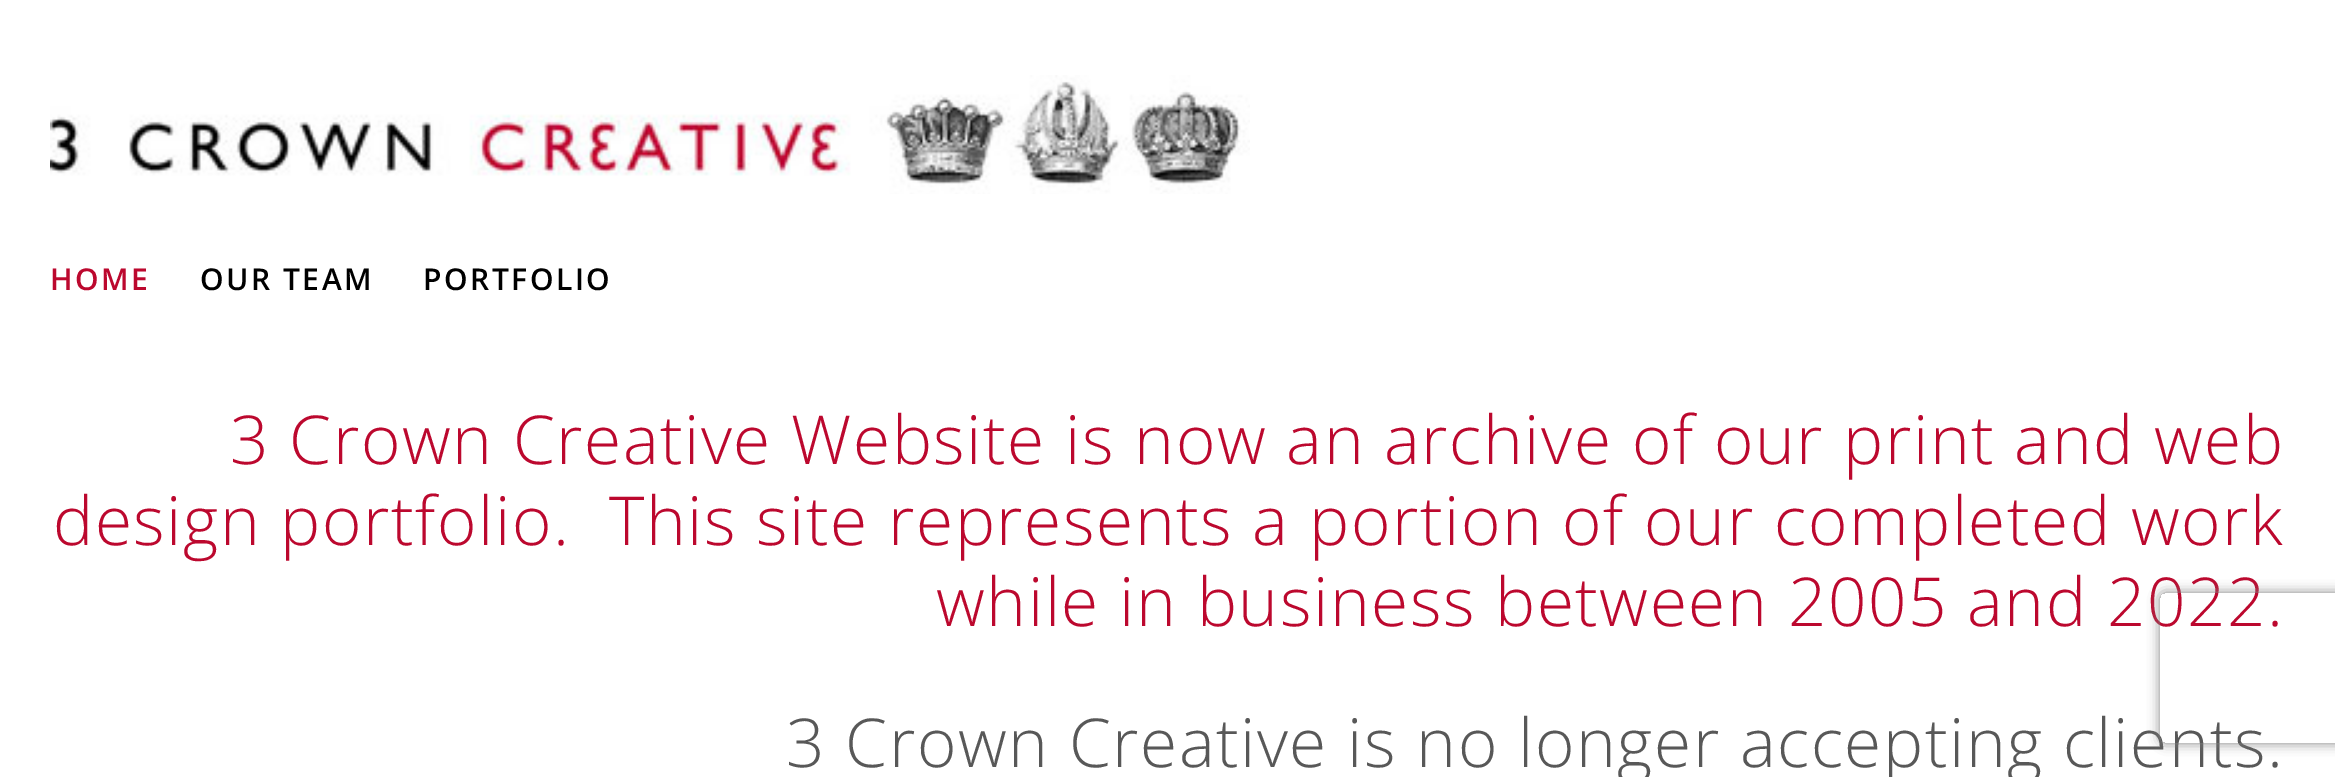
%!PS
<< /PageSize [2335 777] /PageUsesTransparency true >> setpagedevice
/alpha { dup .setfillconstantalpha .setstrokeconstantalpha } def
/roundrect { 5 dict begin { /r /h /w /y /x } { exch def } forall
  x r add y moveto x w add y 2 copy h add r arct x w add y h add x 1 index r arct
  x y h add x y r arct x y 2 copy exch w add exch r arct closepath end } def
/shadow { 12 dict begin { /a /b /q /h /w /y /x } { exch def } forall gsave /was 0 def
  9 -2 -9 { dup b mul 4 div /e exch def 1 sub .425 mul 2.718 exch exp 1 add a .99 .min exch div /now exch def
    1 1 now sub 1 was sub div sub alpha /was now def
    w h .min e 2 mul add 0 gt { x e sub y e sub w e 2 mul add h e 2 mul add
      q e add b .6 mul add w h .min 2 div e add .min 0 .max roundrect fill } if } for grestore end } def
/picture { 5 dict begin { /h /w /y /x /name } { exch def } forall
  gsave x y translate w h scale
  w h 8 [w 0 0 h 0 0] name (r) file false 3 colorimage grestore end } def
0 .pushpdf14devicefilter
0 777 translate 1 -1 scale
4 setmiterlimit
1 setgray
0 0 2335 777 rectfill
(img1.rgb) 50 75 1200 119 picture
/OpenSans-SemiBold [30 0 0 -30 0 0] selectfont
0.737 0.031 0.18 setrgbcolor
50 290 moveto 2.5 0 (HOME) ashow
0 setgray
200 290 moveto 2.5 0 (OUR TEAM) ashow
423 290 moveto 2.5 0 (PORTFOLIO) ashow
/OpenSans-Light [67.5 0 0 -67.5 0 0] selectfont
0.737 0.031 0.18 setrgbcolor
230 464 moveto 1.58 0 (3 Crown Creative Website is now an archive of our print and web) ashow
53 545 moveto 1.58 0 (design portfolio.  This site represents a portion of our completed work) ashow
936 626 moveto 1.58 0 (while in business between 2005 and 2022.) ashow
0.345 setgray
786 767 moveto 1.58 0 (3 Crown Creative is no longer accepting clients.) ashow
gsave
newpath 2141 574 moveto 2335 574 lineto 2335 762 lineto 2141 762 lineto closepath 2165 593 moveto 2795 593 lineto 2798 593 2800 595 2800 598 curveto 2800 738 lineto 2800 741 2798 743 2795 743 curveto 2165 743 lineto 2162 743 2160 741 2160 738 curveto 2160 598 lineto 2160 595 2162 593 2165 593 curveto closepath eoclip newpath
0.502 setgray
2160 593 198 150 5 6 1 shadow
grestore
.poppdf14devicefilter showpage
